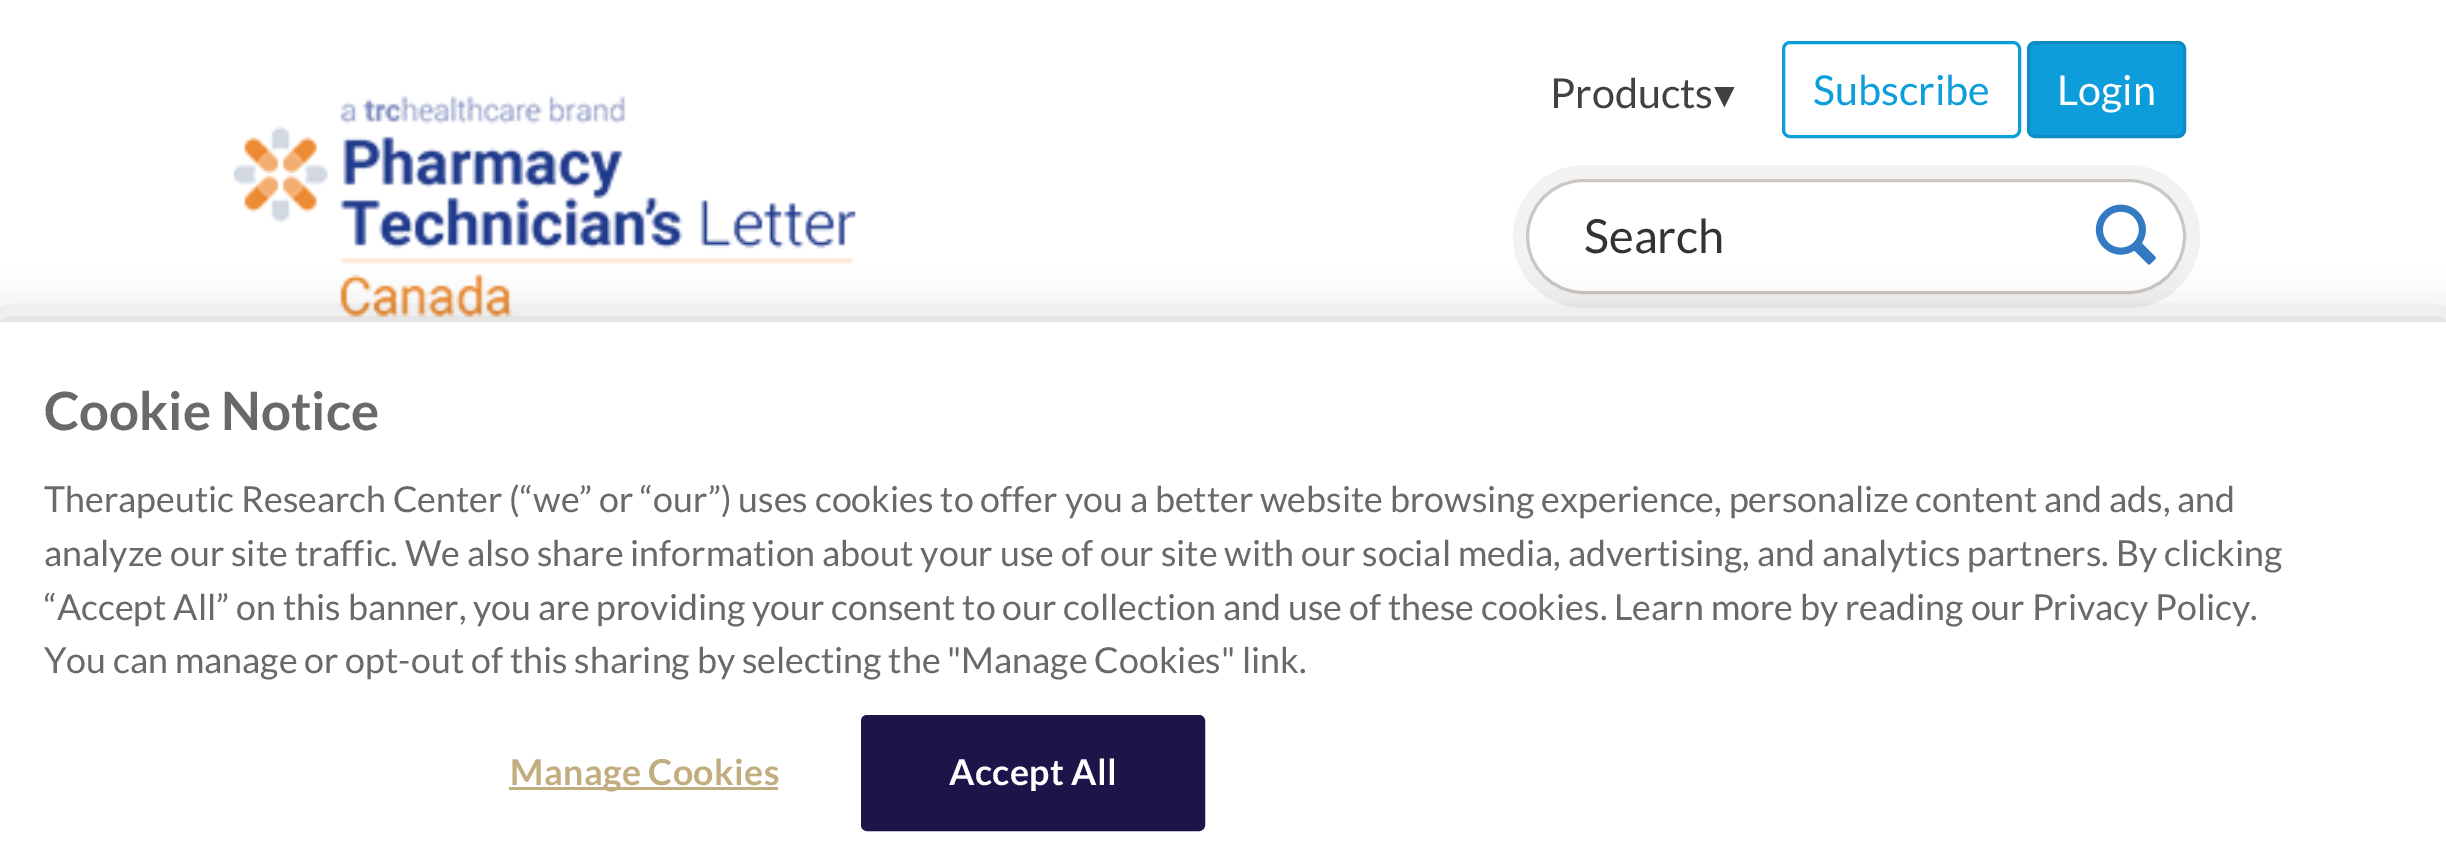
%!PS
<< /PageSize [2446 856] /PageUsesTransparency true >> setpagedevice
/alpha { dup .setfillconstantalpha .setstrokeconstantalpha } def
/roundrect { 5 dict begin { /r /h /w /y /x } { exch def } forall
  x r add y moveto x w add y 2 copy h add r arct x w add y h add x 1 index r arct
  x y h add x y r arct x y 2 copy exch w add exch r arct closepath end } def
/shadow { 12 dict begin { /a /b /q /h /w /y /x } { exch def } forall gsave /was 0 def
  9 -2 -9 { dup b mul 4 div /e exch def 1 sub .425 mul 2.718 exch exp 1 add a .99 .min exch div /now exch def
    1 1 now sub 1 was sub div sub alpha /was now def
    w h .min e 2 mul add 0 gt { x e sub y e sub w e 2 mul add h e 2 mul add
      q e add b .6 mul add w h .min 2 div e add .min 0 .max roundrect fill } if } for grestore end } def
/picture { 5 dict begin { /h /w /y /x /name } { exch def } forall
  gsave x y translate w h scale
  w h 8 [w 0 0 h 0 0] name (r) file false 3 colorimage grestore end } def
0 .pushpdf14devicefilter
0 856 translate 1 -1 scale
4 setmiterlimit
1 setgray
0 0 2446 856 rectfill
(img1.rgb) 233 95 623 223 picture
/Lato-Regular [41.25 0 0 -41.25 0 0] selectfont
0.255 setgray
1550 108 moveto (Products) show
/DejaVuSans-Regular [41.25 0 0 -41.25 0 0] selectfont
1714 108 moveto (▾) show
0.051 0.616 0.859 setrgbcolor
3 setlinewidth
1783.5 42.5 236 94 6.5 roundrect stroke
/Lato-Regular [41.25 0 0 -41.25 0 0] selectfont
1813 105 moveto (Subscribe) show
2028.5 42.5 156 94 6.5 roundrect gsave fill grestore
0.047 0.549 0.765 setrgbcolor
stroke
1 setgray
2057 105 moveto (Login) show
0.953 0.949 0.949 setrgbcolor
1513 165 687 143 71.5 roundrect fill
1 setgray
1527.5 180.5 657 112 56 roundrect gsave fill grestore
0.8 0.78 0.765 setrgbcolor
stroke
/Lato-Regular [47 0 0 -47 0 0] selectfont
0.2 setgray
1584 253 moveto (Search) show
(img2.rgb) 2095 204 61 61 picture
0 setgray
0 322 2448 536 0 25 0.2 shadow
1 setgray
0 322 2446 534 rectfill
/Lato-Bold [52.75 0 0 -52.75 0 0] selectfont
0.412 setgray
44 430 moveto (Cookie Notice) show
/Lato-Regular [35.77 0 0 -35.77 0 0] selectfont
44 512 moveto (Therapeutic Research Center \(“we” or “our”\) uses cookies to offer you a better website browsing experience, personalize content and ads, and) show
44 566 moveto (analyze our site traffic. We also share information about your use of our site with our social media, advertising, and analytics partners. By clicking) show
44 620 moveto (“Accept All” on this banner, you are providing your consent to our collection and use of these cookies. Learn more by reading our Privacy Policy.) show
44 673 moveto (You can manage or opt-out of this sharing by selecting the "Manage Cookies" link.) show
0.757 0.678 0.502 setrgbcolor
509 787 269 3 rectfill
/Lato-Bold [35.77 0 0 -35.77 0 0] selectfont
510 785 moveto 0.4 0 (Manage Cookies) ashow
0.106 0.082 0.286 setrgbcolor
862.5 716.5 341 113 4.5 roundrect gsave fill grestore
stroke
1 setgray
949 785 moveto 0.4 0 (Accept All) ashow
.poppdf14devicefilter showpage
